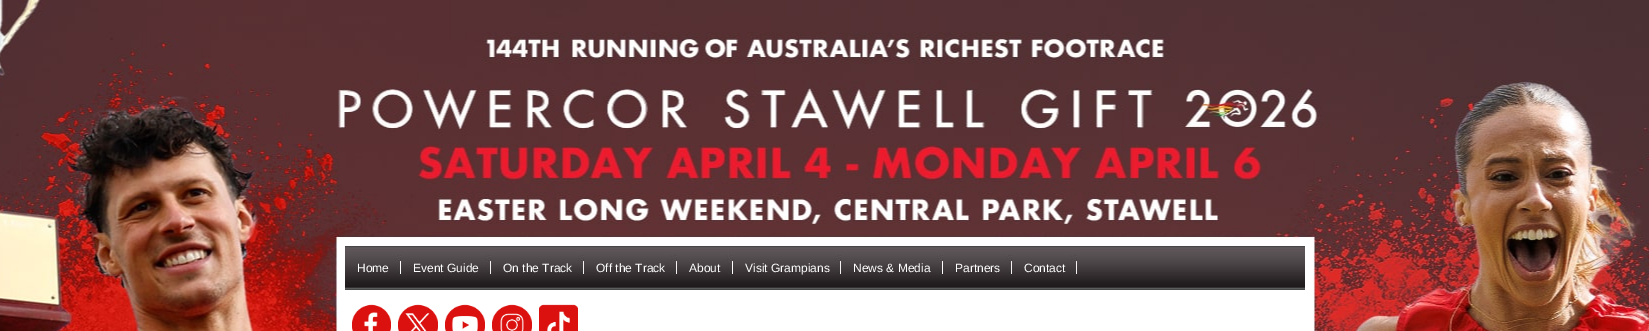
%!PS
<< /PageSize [1649 331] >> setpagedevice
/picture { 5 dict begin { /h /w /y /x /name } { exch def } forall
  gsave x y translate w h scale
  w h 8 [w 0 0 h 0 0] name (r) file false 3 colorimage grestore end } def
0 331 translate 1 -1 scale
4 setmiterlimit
1 setgray
0 0 1649 331 rectfill
(img1.rgb) 0 0 1649 331 picture
(img2.rgb) 345 246 960 44 picture
(img3.rgb) 395 255 6 21 picture
/LiberationSans-Regular [12 0 0 -12 0 0] selectfont
357 272 moveto (Home) show
(img4.rgb) 485 255 6 20 picture
413 272 moveto (Event Guide) show
(img4.rgb) 578 255 6 20 picture
503 272 moveto (On the Track) show
(img4.rgb) 671 255 6 20 picture
596 272 moveto (Off the Track) show
(img5.rgb) 727 255 6 21 picture
689 272 moveto (About) show
(img4.rgb) 835 255 6 20 picture
745 272 moveto (Visit Grampians) show
(img3.rgb) 937 255 6 21 picture
853 272 moveto (News & Media) show
(img4.rgb) 1006 255 6 20 picture
955 272 moveto (Partners) show
(img4.rgb) 1071 255 6 20 picture
1024 272 moveto (Contact) show
(img6.rgb) 352 304 39 27 picture
(img7.rgb) 398 304 40 27 picture
(img8.rgb) 445 304 40 27 picture
(img9.rgb) 492 304 40 27 picture
(img10.rgb) 539 304 39 27 picture
showpage
